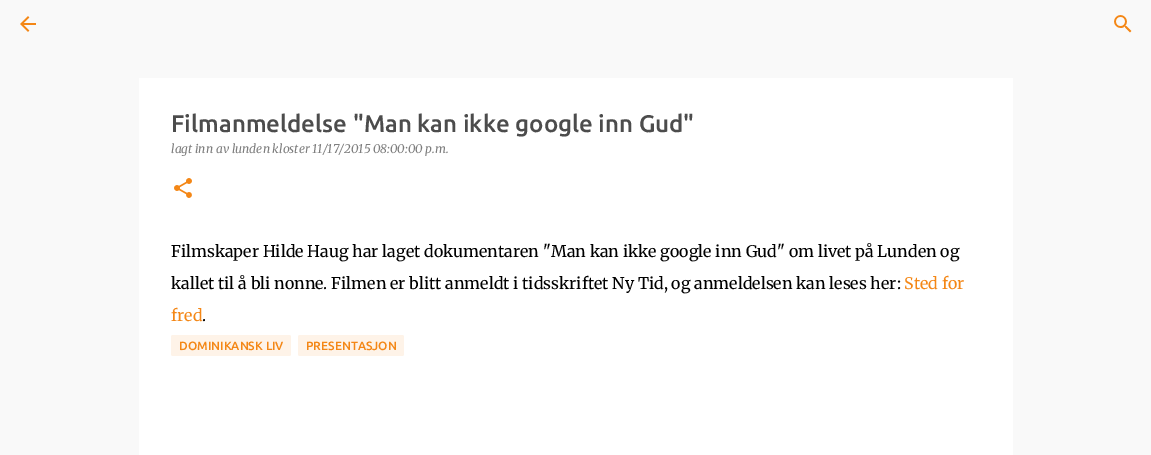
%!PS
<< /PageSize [1151 455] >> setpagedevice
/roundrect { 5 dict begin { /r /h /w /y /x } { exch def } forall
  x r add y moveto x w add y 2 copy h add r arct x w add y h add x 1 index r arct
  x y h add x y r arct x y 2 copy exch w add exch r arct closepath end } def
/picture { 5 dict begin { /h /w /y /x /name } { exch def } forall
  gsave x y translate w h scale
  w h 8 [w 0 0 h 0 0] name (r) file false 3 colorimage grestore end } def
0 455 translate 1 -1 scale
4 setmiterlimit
0.976 setgray
0 0 1151 455 rectfill
(img1.rgb) 20 16 16 16 picture
(img2.rgb) 1114 15 18 18 picture
1 setgray
139 78 874 377 rectfill
/Ubuntu-Medium [24 0 0 -24 0 0] selectfont
0.298 setgray
171 132 moveto (Filmanmeldelse "Man kan ikke google inn Gud") show
/Merriweather-Italic [12 0 0 -12 0 0] selectfont
0.494 setgray
171 153 moveto (lagt inn av lunden kloster 11/17/2015 08:00:00 p.m.) show
(img3.rgb) 174 178 18 20 picture
/Merriweather-Light [16 0 0 -16 0 0] selectfont
0 setgray
171 257 moveto (Filmskaper Hilde Haug har laget dokumentaren "Man kan ikke google inn Gud" om livet på Lunden og) show
171 289 moveto (kallet til å bli nonne. Filmen er blitt anmeldt i tidsskriftet Ny Tid, og anmeldelsen kan leses her:) show
0.957 0.529 0.086 setrgbcolor
904 289 moveto (Sted for) show
171 321 moveto (fred) show
0 setgray
202 321 moveto (.) show
0.996 0.953 0.91 setrgbcolor
171 335 120 21 2 roundrect fill
/Ubuntu-Medium [12 0 0 -12 0 0] selectfont
0.957 0.529 0.086 setrgbcolor
179 350 moveto (DOMINIKANSK LIV) show
0.996 0.953 0.91 setrgbcolor
298 335 106 21 2 roundrect fill
0.957 0.529 0.086 setrgbcolor
306 350 moveto (PRESENTASJON) show
showpage
